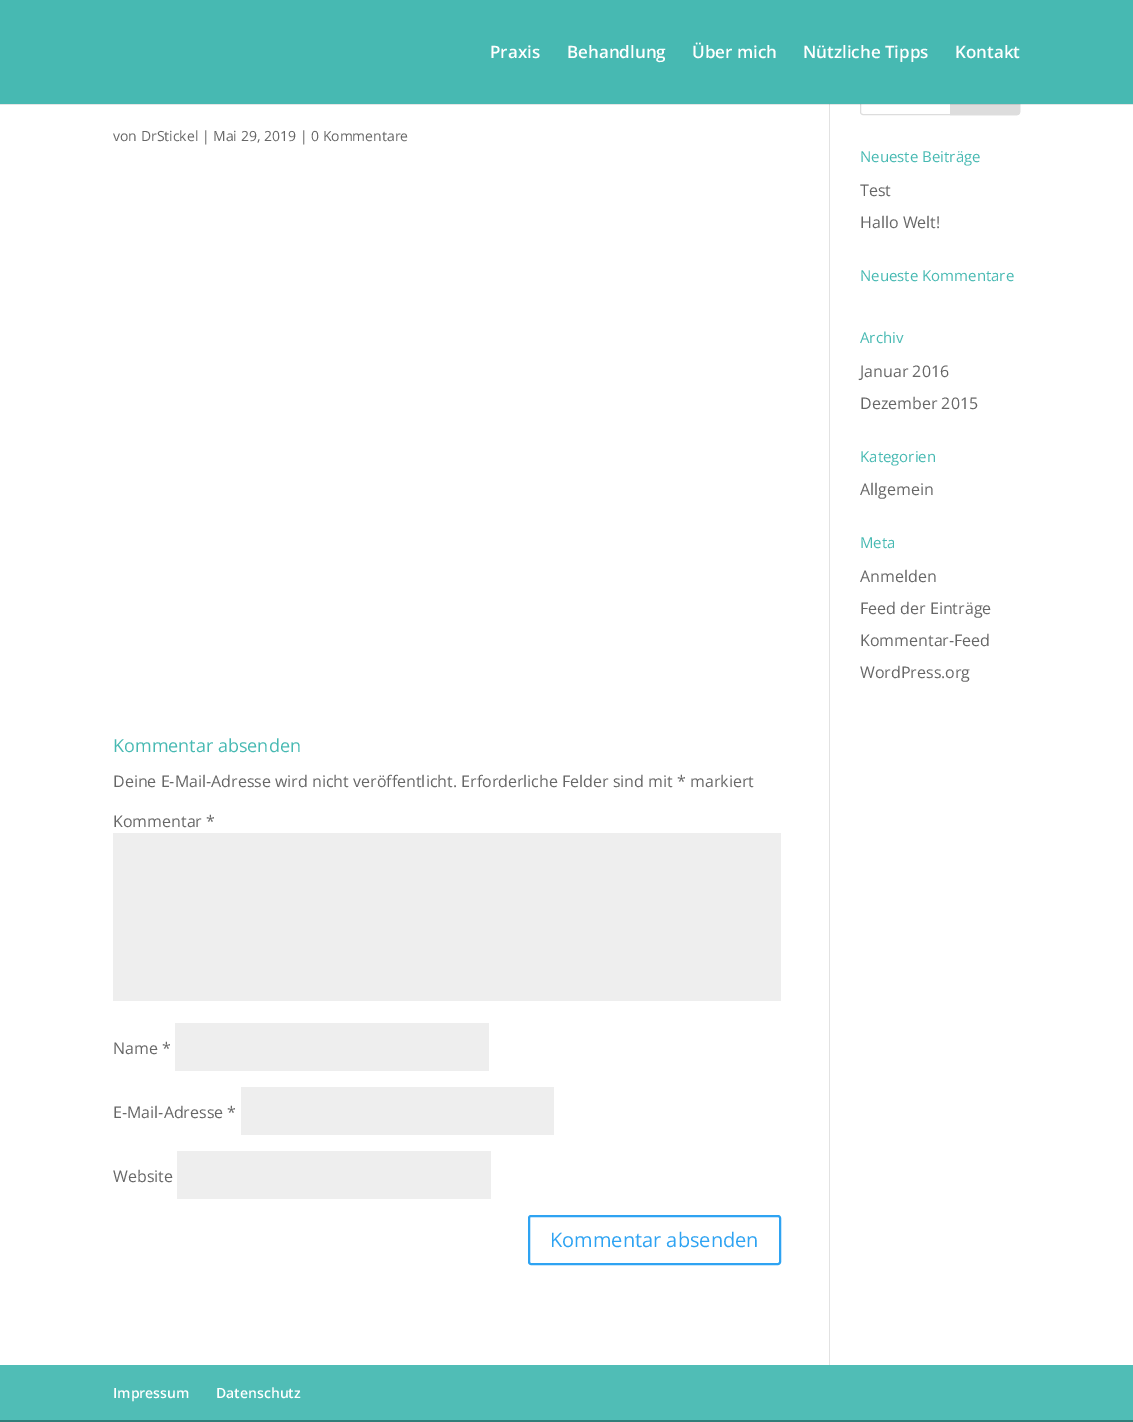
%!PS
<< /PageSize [1133 1422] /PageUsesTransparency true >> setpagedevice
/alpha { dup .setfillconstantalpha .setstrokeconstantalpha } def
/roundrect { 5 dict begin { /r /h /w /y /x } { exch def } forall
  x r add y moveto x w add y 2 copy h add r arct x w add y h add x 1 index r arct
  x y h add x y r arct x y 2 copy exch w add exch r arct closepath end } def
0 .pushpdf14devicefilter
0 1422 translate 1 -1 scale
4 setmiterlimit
1 setgray
0 0 1133 1422 rectfill
0.886 setgray
829 104 1 1261 rectfill
0.867 setgray
860.5 75.5 159 39 2.5 roundrect stroke
newpath 950.5 75.5 moveto 1017 75.5 lineto 1018.5 75.5 1019.5 76.5 1019.5 78 curveto 1019.5 112 lineto 1019.5 113.5 1018.5 114.5 1017 114.5 curveto 950.5 114.5 lineto closepath gsave fill grestore
stroke
0.1 alpha
0 setgray
0 104 1133 1 rectfill
1 alpha
0.278 0.725 0.698 setrgbcolor
0 0 1133 104 rectfill
/OpenSans-SemiBold [17 0 0 -17 0 0] selectfont
1 setgray
490 58 moveto (Praxis) show
567 58 moveto (Behandlung) show
692 58 moveto (Über mich) show
803 58 moveto (Nützliche Tipps) show
955 58 moveto (Kontakt) show
/OpenSans-Regular [14 0 0 -14 0 0] selectfont
0.4 setgray
113 141 moveto (von DrStickel | Mai 29, 2019 | 0 Kommentare) show
/OpenSans-Regular [18 0 0 -18 0 0] selectfont
0.278 0.725 0.698 setrgbcolor
113 752 moveto (Kommentar absenden) show
/OpenSans-Regular [16 0 0 -16 0 0] selectfont
0.4 setgray
113 787 moveto (Deine E-Mail-Adresse wird nicht veröffentlicht. Erforderliche Felder sind mit * markiert) show
113 827 moveto (Kommentar *) show
0.933 setgray
113 833 668 168 rectfill
0.4 setgray
113 1054 moveto (Name *) show
0.933 setgray
175 1023 314 48 rectfill
0.4 setgray
113 1118 moveto (E-Mail-Adresse *) show
0.933 setgray
241 1087 313 48 rectfill
0.4 setgray
113 1182 moveto (Website) show
0.933 setgray
177 1151 314 48 rectfill
0.18 0.639 0.949 setrgbcolor
2 setlinewidth
529 1216 251 48 2 roundrect stroke
/OpenSans-Regular [20 0 0 -20 0 0] selectfont
550 1247 moveto (Kommentar absenden) show
/OpenSans-Regular [15 0 0 -15 0 0] selectfont
0.278 0.725 0.698 setrgbcolor
860 162 moveto (Neueste Beiträge) show
/OpenSans-Regular [16 0 0 -16 0 0] selectfont
0.4 setgray
860 196 moveto (Test) show
860 228 moveto (Hallo Welt!) show
/OpenSans-Regular [15 0 0 -15 0 0] selectfont
0.278 0.725 0.698 setrgbcolor
860 281 moveto (Neueste Kommentare) show
860 343 moveto (Archiv) show
/OpenSans-Regular [16 0 0 -16 0 0] selectfont
0.4 setgray
860 377 moveto (Januar 2016) show
860 409 moveto (Dezember 2015) show
/OpenSans-Regular [15 0 0 -15 0 0] selectfont
0.278 0.725 0.698 setrgbcolor
860 462 moveto (Kategorien) show
/OpenSans-Regular [16 0 0 -16 0 0] selectfont
0.4 setgray
860 495 moveto (Allgemein) show
/OpenSans-Regular [15 0 0 -15 0 0] selectfont
0.278 0.725 0.698 setrgbcolor
860 548 moveto (Meta) show
/OpenSans-Regular [16 0 0 -16 0 0] selectfont
0.4 setgray
860 582 moveto (Anmelden) show
860 614 moveto (Feed der Einträge) show
860 646 moveto (Kommentar-Feed) show
860 678 moveto (WordPress.org) show
0.314 0.741 0.714 setrgbcolor
0 1365 1133 55 rectfill
/OpenSans-SemiBold [14 0 0 -14 0 0] selectfont
1 setgray
113 1398 moveto (Impressum) show
216 1398 moveto (Datenschutz) show
0.188 0.494 0.475 setrgbcolor
0 1420 1133 2 rectfill
.poppdf14devicefilter showpage
